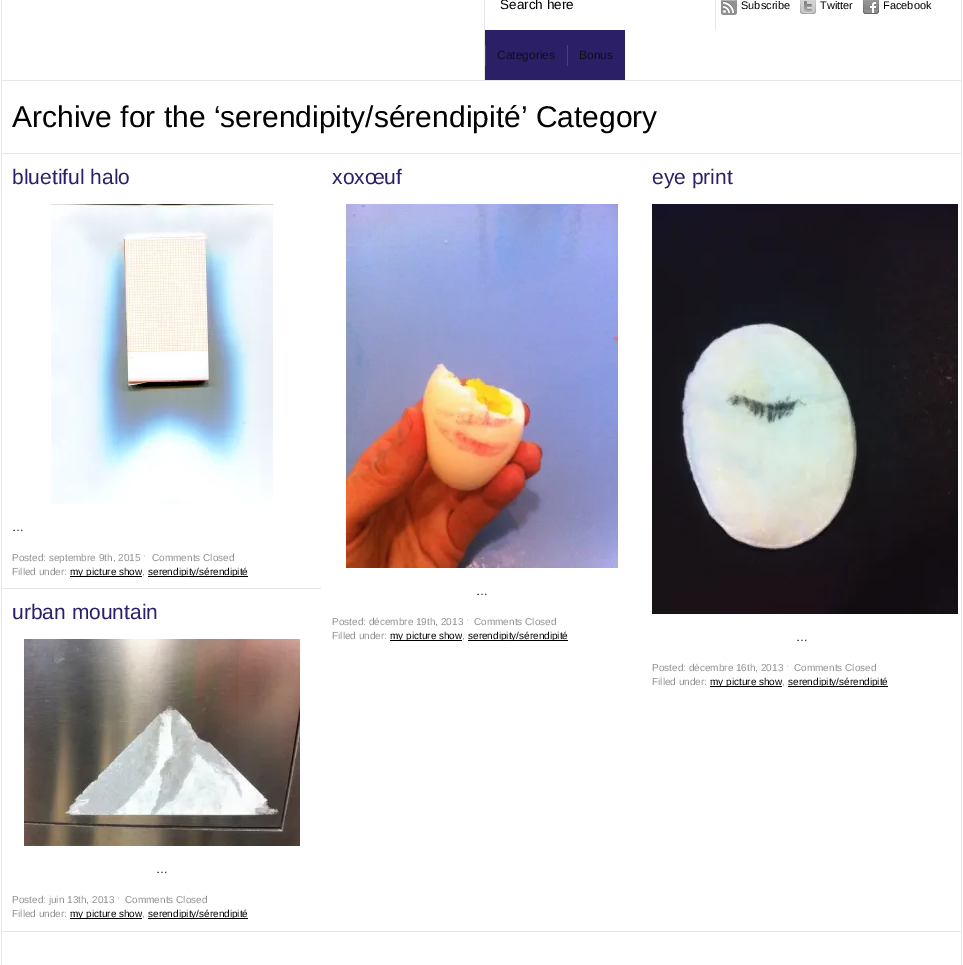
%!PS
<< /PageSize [963 965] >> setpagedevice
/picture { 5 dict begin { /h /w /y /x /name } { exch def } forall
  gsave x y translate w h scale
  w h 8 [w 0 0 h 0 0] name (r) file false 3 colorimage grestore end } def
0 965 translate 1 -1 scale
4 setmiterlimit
1 setgray
0 0 963 965 rectfill
0.906 setgray
961 0 1 965 rectfill
1 0 1 965 rectfill
2 80 959 1 rectfill
484 0 1 80 rectfill
715 0 1 30 rectfill
/LiberationSans-Regular [13.5 0 0 -13.5 0 0] selectfont
0 setgray
500 9 moveto (Search here) show
(img1.rgb) 721 0 16 15 picture
/LiberationSans-Regular [11 0 0 -11 0 0] selectfont
741 9 moveto (Subscribe) show
(img2.rgb) 800 0 16 14 picture
820 9 moveto (Twitter) show
(img3.rgb) 863 0 16 14 picture
883 9 moveto (Facebook) show
0.169 0.125 0.404 setrgbcolor
485 30 140 50 rectfill
0.286 setgray
485 45 1 21 rectfill
/LiberationSans-Regular [12 0 0 -12 0 0] selectfont
0.071 0.051 0.086 setrgbcolor
497 59 moveto (Categories) show
0.286 setgray
567 45 1 21 rectfill
0.071 0.051 0.086 setrgbcolor
579 59 moveto (Bonus) show
0.906 setgray
2 153 959 1 rectfill
/LiberationSans-Regular [30 0 0 -30 0 0] selectfont
0 setgray
12 127 moveto (Archive for the ‘serendipity/sérendipité’ Category) show
/LiberationSans-Regular [21 0 0 -21 0 0] selectfont
0.169 0.125 0.404 setrgbcolor
12 184 moveto (bluetiful halo) show
(img4.rgb) 51 204 222 300 picture
/LiberationSans-Regular [12 0 0 -12 0 0] selectfont
0 setgray
12 531 moveto (…) show
/LiberationSans-Regular [10 0 0 -10 0 0] selectfont
0.573 setgray
12 561 moveto (Posted: septembre 9th, 2015 ˑ) show
152 561 moveto (Comments Closed) show
12 575 moveto (Filled under:) show
0 setgray
70 576 72 1 rectfill
70 575 moveto (my picture show) show
148 576 100 1 rectfill
148 575 moveto (serendipity/sérendipité) show
0.573 setgray
142 575 moveto (,) show
0.906 setgray
2 588 319 1 rectfill
/LiberationSans-Regular [21 0 0 -21 0 0] selectfont
0.169 0.125 0.404 setrgbcolor
12 619 moveto (urban mountain) show
(img5.rgb) 24 639 276 207 picture
/LiberationSans-Regular [12 0 0 -12 0 0] selectfont
0 setgray
156 873 moveto (…) show
/LiberationSans-Regular [10 0 0 -10 0 0] selectfont
0.573 setgray
12 903 moveto (Posted: juin 13th, 2013 ˑ) show
125 903 moveto (Comments Closed) show
12 917 moveto (Filled under:) show
0 setgray
70 918 72 1 rectfill
70 917 moveto (my picture show) show
148 918 100 1 rectfill
148 917 moveto (serendipity/sérendipité) show
0.573 setgray
142 917 moveto (,) show
/LiberationSans-Regular [21 0 0 -21 0 0] selectfont
0.169 0.125 0.404 setrgbcolor
332 184 moveto (xoxœuf) show
(img6.rgb) 346 204 272 364 picture
/LiberationSans-Regular [12 0 0 -12 0 0] selectfont
0 setgray
476 595 moveto (…) show
/LiberationSans-Regular [10 0 0 -10 0 0] selectfont
0.573 setgray
332 625 moveto (Posted: décembre 19th, 2013 ˑ) show
474 625 moveto (Comments Closed) show
332 639 moveto (Filled under:) show
0 setgray
390 640 72 1 rectfill
390 639 moveto (my picture show) show
468 640 100 1 rectfill
468 639 moveto (serendipity/sérendipité) show
0.573 setgray
462 639 moveto (,) show
/LiberationSans-Regular [21 0 0 -21 0 0] selectfont
0.169 0.125 0.404 setrgbcolor
652 184 moveto (eye print) show
(img7.rgb) 652 204 306 410 picture
/LiberationSans-Regular [12 0 0 -12 0 0] selectfont
0 setgray
796 641 moveto (…) show
/LiberationSans-Regular [10 0 0 -10 0 0] selectfont
0.573 setgray
652 671 moveto (Posted: décembre 16th, 2013 ˑ) show
794 671 moveto (Comments Closed) show
652 685 moveto (Filled under:) show
0 setgray
710 686 72 1 rectfill
710 685 moveto (my picture show) show
788 686 100 1 rectfill
788 685 moveto (serendipity/sérendipité) show
0.573 setgray
782 685 moveto (,) show
0.906 setgray
2 931 959 1 rectfill
showpage
